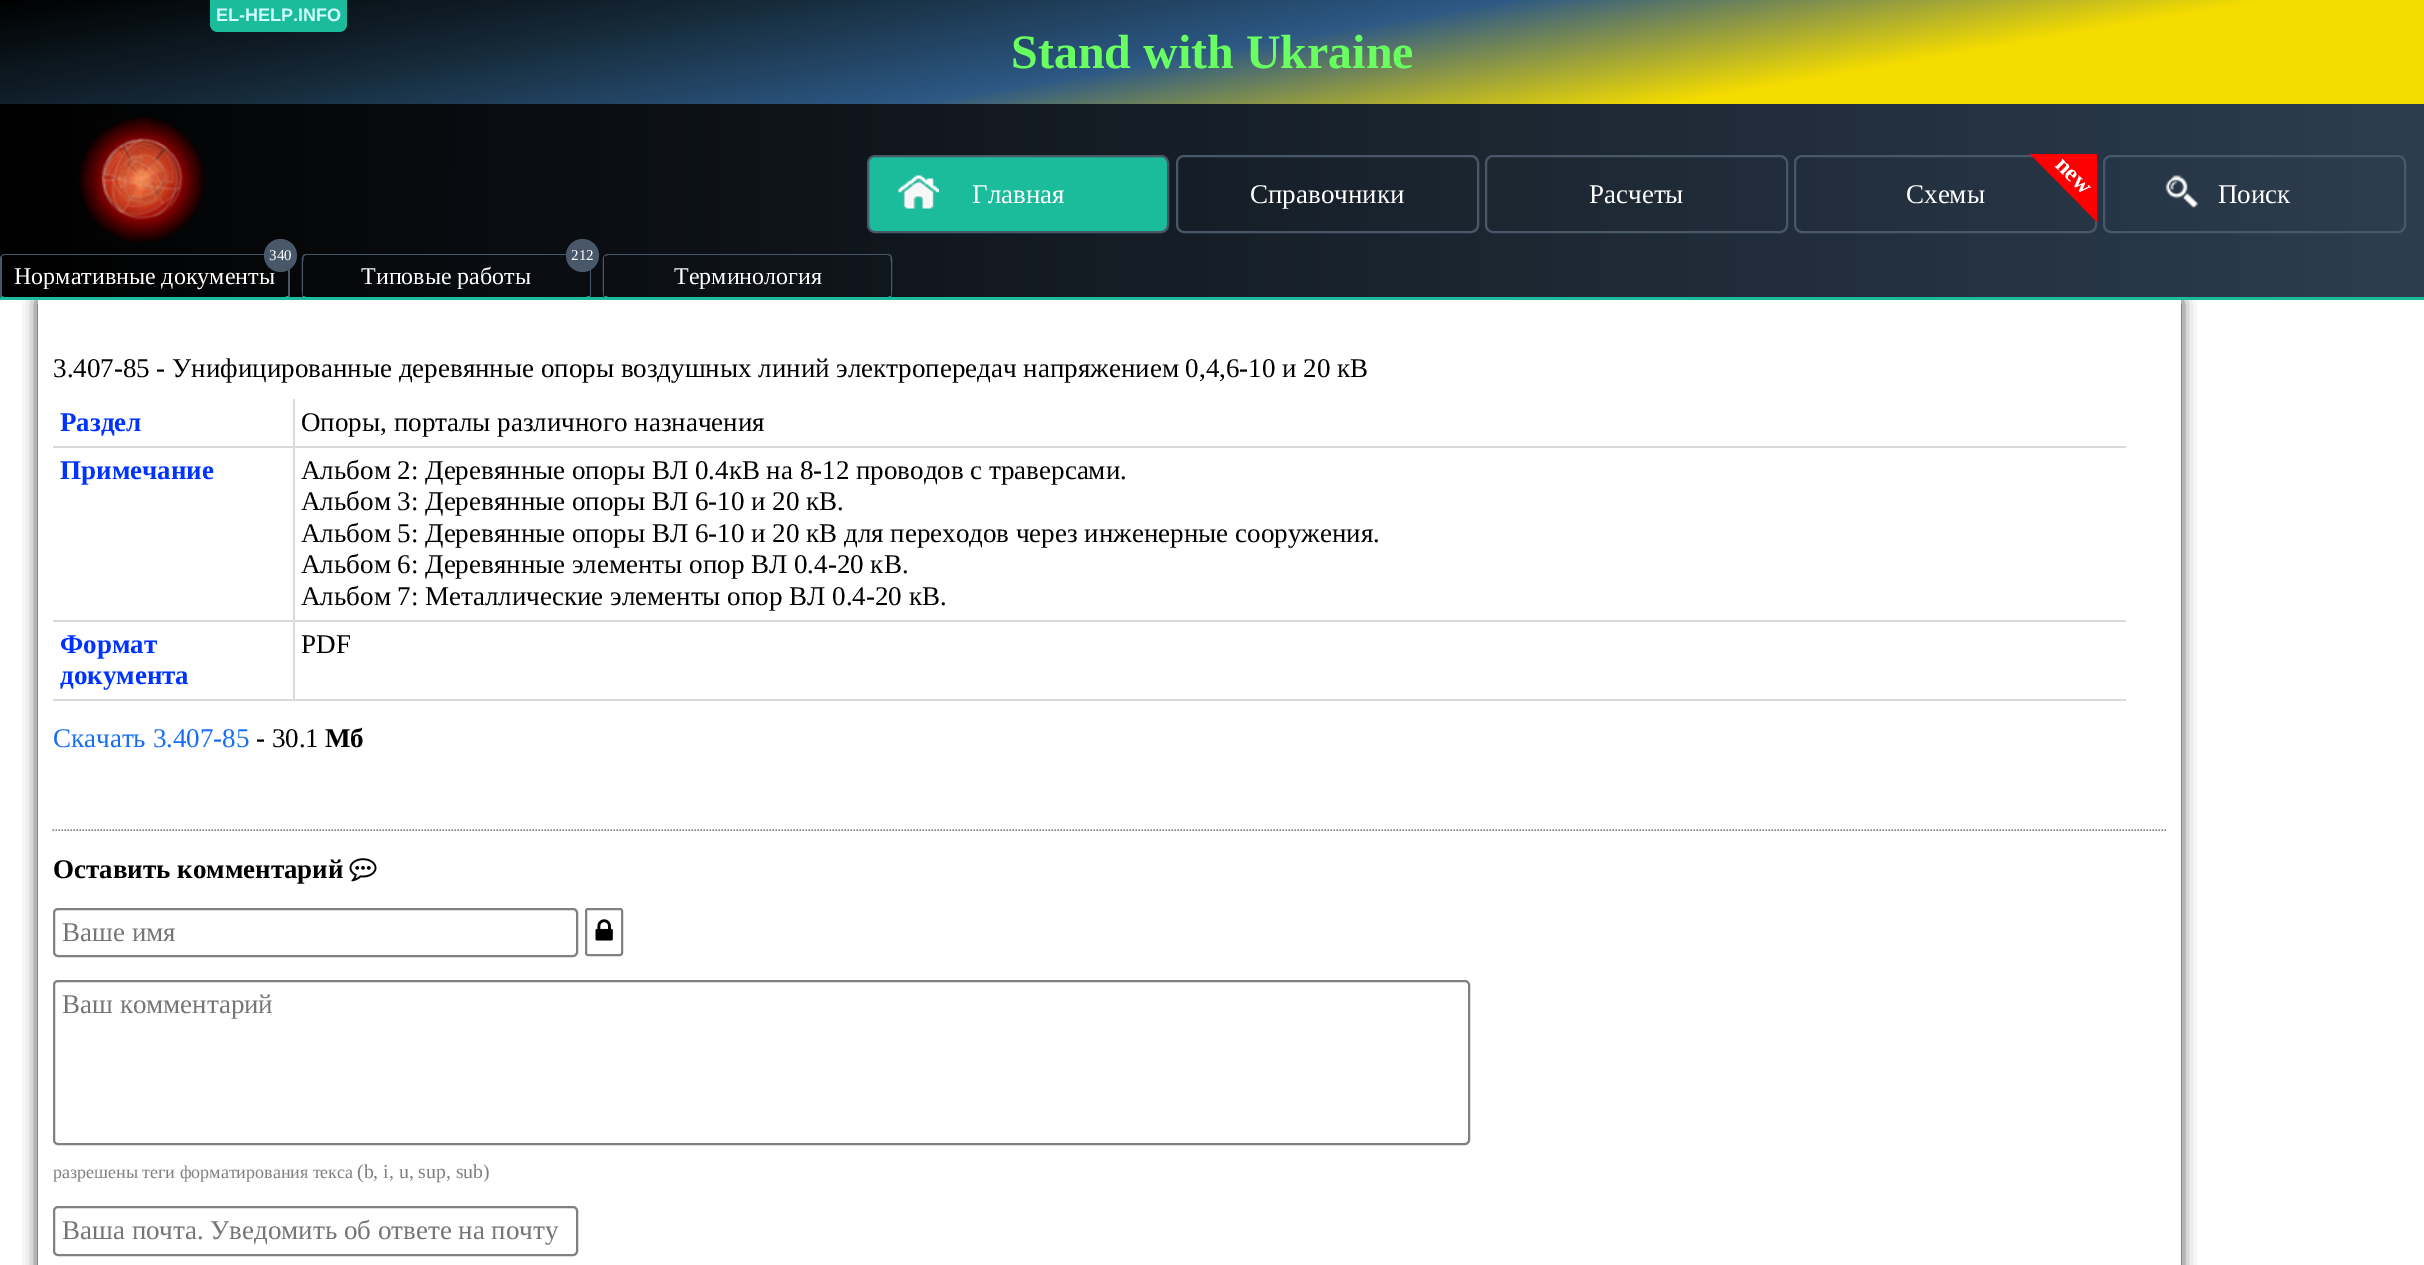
%!PS
<< /PageSize [2424 1265] /PageUsesTransparency true >> setpagedevice
/alpha { dup .setfillconstantalpha .setstrokeconstantalpha } def
/roundrect { 5 dict begin { /r /h /w /y /x } { exch def } forall
  x r add y moveto x w add y 2 copy h add r arct x w add y h add x 1 index r arct
  x y h add x y r arct x y 2 copy exch w add exch r arct closepath end } def
/shadow { 12 dict begin { /a /b /q /h /w /y /x } { exch def } forall gsave /was 0 def
  9 -2 -9 { dup b mul 4 div /e exch def 1 sub .425 mul 2.718 exch exp 1 add a .99 .min exch div /now exch def
    1 1 now sub 1 was sub div sub alpha /was now def
    w h .min e 2 mul add 0 gt { x e sub y e sub w e 2 mul add h e 2 mul add
      q e add b .6 mul add w h .min 2 div e add .min 0 .max roundrect fill } if } for grestore end } def
/picture { 5 dict begin { /h /w /y /x /name } { exch def } forall
  gsave x y translate w h scale
  w h 8 [w 0 0 h 0 0] name (r) file false 3 colorimage grestore end } def
0 .pushpdf14devicefilter
0 1265 translate 1 -1 scale
4 setmiterlimit
1 setgray
0 0 2424 1265 rectfill
gsave newpath 0 104 moveto 2424 104 lineto 2424 254 lineto 0 254 lineto closepath clip newpath
<< /ShadingType 2 /ColorSpace /DeviceRGB /Coords [2424 179 0 178] /Extend [true true] /Function << /FunctionType 2 /Domain [0 1] /C0 [0.176 0.243 0.314] /C1 [0 0 0] /N 1 >> >> shfill grestore
gsave newpath 0 0 moveto 2424 0 lineto 2424 104 lineto 0 104 lineto closepath clip newpath
<< /ShadingType 2 /ColorSpace /DeviceRGB /Coords [1257 309 1167 -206] /Extend [true true] /Function << /FunctionType 3 /Domain [0 1] /Functions [<< /FunctionType 2 /Domain [0 1] /C0 [0.957 0.863 0] /C1 [0.957 0.863 0] /N 1 >> << /FunctionType 2 /Domain [0 1] /C0 [0.957 0.863 0] /C1 [0.176 0.349 0.522] /N 1 >> << /FunctionType 2 /Domain [0 1] /C0 [0.176 0.349 0.522] /C1 [0.082 0.157 0.212] /N 1 >> << /FunctionType 2 /Domain [0 1] /C0 [0.082 0.157 0.212] /C1 [0 0 0] /N 1 >>] /Bounds [0.25 0.5 0.75] /Encode [0 1 0 1 0 1 0 1] >> >> shfill grestore
0.106 0.737 0.608 setrgbcolor
newpath 210 -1 moveto 347 -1 lineto 347 24 lineto 347 28.5 343.5 32 339 32 curveto 218 32 lineto 213.5 32 210 28.5 210 24 curveto closepath fill
/LiberationSans-Bold [18 0 0 -18 0 0] selectfont
0.827 1 1 setrgbcolor
216 21 moveto (EL-HELP.INFO) show
(img1.rgb) 78 117 126 126 picture
0.106 0.737 0.608 setrgbcolor
868 156 300 76 7 roundrect gsave fill grestore
0.282 0.345 0.412 setrgbcolor
2 setlinewidth
stroke
(img2.rgb) 898 175 41 34 picture
/LiberationSerif-Regular [27 0 0 -27 0 0] selectfont
1 setgray
972 203 moveto (Главная) show
0.282 0.345 0.412 setrgbcolor
1177 156 301 76 7 roundrect stroke
1 setgray
1250 203 moveto (Справочники) show
0.282 0.345 0.412 setrgbcolor
1486 156 301 76 7 roundrect stroke
1 setgray
1589 203 moveto (Расчеты) show
0.282 0.345 0.412 setrgbcolor
1795 156 301 76 7 roundrect stroke
1 0 0 setrgbcolor
newpath 2030 154 moveto 2097 154 lineto 2097 222 lineto closepath fill
1 setgray
1906 203 moveto (Схемы) show
/LiberationSerif-Bold [24 0 0 -24 0 0] selectfont
gsave 2054 166 translate 45 rotate 0 0 moveto (new) show grestore
0.282 0.345 0.412 setrgbcolor
2104 156 301 76 7 roundrect stroke
(img3.rgb) 2165 175 33 33 picture
/LiberationSerif-Regular [27 0 0 -27 0 0] selectfont
1 setgray
2218 203 moveto (Поиск) show
gsave
newpath 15 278 moveto 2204 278 lineto 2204 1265 lineto 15 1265 lineto closepath 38 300 moveto 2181 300 lineto 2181 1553 lineto 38 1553 lineto closepath eoclip newpath
0 setgray
39 302 2141 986 0 7.5 1 shadow
grestore
gsave newpath 0 254 moveto 2424 254 lineto 2424 297 lineto 0 297 lineto closepath clip newpath
<< /ShadingType 2 /ColorSpace /DeviceRGB /Coords [2424 275 0 275] /Extend [true true] /Function << /FunctionType 2 /Domain [0 1] /C0 [0.176 0.243 0.314] /C1 [0 0 0] /N 1 >> >> shfill grestore
0.106 0.737 0.608 setrgbcolor
0 297 2424 3 rectfill
0.282 0.345 0.412 setrgbcolor
newpath 4 254 moveto 2 255 lineto 2 256 lineto 4 255 lineto 285 255 lineto 287 256 lineto 288 255 lineto 285 254 lineto closepath fill
newpath 290 297 moveto 289 298 lineto 288 296 lineto 288 291 289 258 287 256 curveto 288 255 lineto 290 257 lineto closepath fill
0.106 0.737 0.608 setrgbcolor
newpath 4 300 moveto 285 300 lineto 289 298 lineto 288 296 lineto 285 297 lineto 4 297 lineto 2 296 lineto 1 298 lineto 2 299 3 300 4 300 curveto closepath fill
0.282 0.345 0.412 setrgbcolor
newpath 0 258 moveto 0 296 lineto 1 298 lineto 2 296 lineto 2 258 lineto 2 256 lineto 2 255 lineto 1 256 0 257 0 258 curveto closepath fill
/LiberationSerif-Regular [24 0 0 -24 0 0] selectfont
1 setgray
14 284 moveto (Нормативные документы) show
0.282 0.345 0.412 setrgbcolor
newpath 280.5 255.5 16.5 0 360 arc closepath fill
/LiberationSerif-Regular [15 0 0 -15 0 0] selectfont
1 setgray
269 260 moveto (340) show
0.282 0.345 0.412 setrgbcolor
newpath 306 254 moveto 303 255 lineto 304 256 lineto 306 255 lineto 586 255 lineto 589 256 lineto 589 255 lineto 586 254 lineto closepath fill
newpath 591 296 moveto 591 258 lineto 591 257 590 256 589 255 curveto 589 256 lineto 590 257 lineto 590 296 lineto 589 296 lineto 590 298 lineto closepath fill
0.106 0.737 0.608 setrgbcolor
newpath 306 300 moveto 586 300 lineto 588 300 589 299 590 298 curveto 589 296 lineto 586 297 lineto 306 297 lineto 303 296 lineto 303 298 lineto 303 299 305 300 306 300 curveto closepath fill
0.282 0.345 0.412 setrgbcolor
newpath 303 255 moveto 302 258 lineto 302 261 301 296 303 298 curveto 303 296 lineto 303 291 302 258 304 256 curveto closepath fill
newpath 582.5 255.5 16.5 0 360 arc closepath fill
1 setgray
571 260 moveto (212) show
/LiberationSerif-Regular [24 0 0 -24 0 0] selectfont
361 284 moveto (Типовые работы) show
0.282 0.345 0.412 setrgbcolor
newpath 608 254 moveto 605 255 lineto 605 256 lineto 608 255 lineto 888 255 lineto 890 256 lineto 891 255 lineto 888 254 lineto closepath fill
newpath 891 298 moveto 893 296 892 261 892 258 curveto 891 255 lineto 890 256 lineto 892 258 891 291 891 296 curveto closepath fill
0.106 0.737 0.608 setrgbcolor
newpath 608 300 moveto 888 300 lineto 889 300 891 299 891 298 curveto 891 296 lineto 888 297 lineto 608 297 lineto 605 296 lineto 604 298 lineto 605 299 606 300 608 300 curveto closepath fill
0.282 0.345 0.412 setrgbcolor
newpath 603 258 moveto 603 263 602 296 604 298 curveto 605 296 lineto 604 296 lineto 604 257 lineto 605 256 lineto 605 255 lineto 604 256 603 257 603 258 curveto closepath fill
1 setgray
674 284 moveto (Терминология) show
/LiberationSerif-Regular [27 0 0 -27 0 0] selectfont
0 setgray
53 377 moveto (3.407-85 - Унифицированные деревянные опоры воздушных линий электропередач напряжением 0,4,6-10 и 20 кВ) show
0.855 setgray
293 699 1833 2 rectfill
293 620 2 81 rectfill
293 620 1833 2 rectfill
293 446 2 175 rectfill
293 446 1833 2 rectfill
293 399 2 48 rectfill
53 446 241 2 rectfill
/LiberationSerif-Bold [27 0 0 -27 0 0] selectfont
0 0.2 1 setrgbcolor
60 431 moveto (Раздел) show
/LiberationSerif-Regular [27 0 0 -27 0 0] selectfont
0 setgray
301 431 moveto (Опоры, порталы различного назначения) show
0.855 setgray
53 620 241 2 rectfill
/LiberationSerif-Bold [27 0 0 -27 0 0] selectfont
0 0.2 1 setrgbcolor
60 479 moveto (Примечание) show
/LiberationSerif-Regular [27 0 0 -27 0 0] selectfont
0 setgray
301 479 moveto (Альбом 2: Деревянные опоры ВЛ 0.4кВ на 8-12 проводов с траверсами.) show
301 510 moveto (Альбом 3: Деревянные опоры ВЛ 6-10 и 20 кВ.) show
301 542 moveto (Альбом 5: Деревянные опоры ВЛ 6-10 и 20 кВ для переходов через инженерные сооружения.) show
301 573 moveto (Альбом 6: Деревянные элементы опор ВЛ 0.4-20 кВ.) show
301 605 moveto (Альбом 7: Металлические элементы опор ВЛ 0.4-20 кВ.) show
0.855 setgray
53 699 241 2 rectfill
/LiberationSerif-Bold [27 0 0 -27 0 0] selectfont
0 0.2 1 setrgbcolor
60 653 moveto (Формат) show
60 684 moveto (документа) show
/LiberationSerif-Regular [27 0 0 -27 0 0] selectfont
0 setgray
301 653 moveto (PDF) show
0.082 0.431 0.953 setrgbcolor
53 747 moveto (Скачать 3.407-85) show
0 setgray
256 747 moveto (- 30.1) show
/LiberationSerif-Bold [27 0 0 -27 0 0] selectfont
325 747 moveto (Мб) show
0.502 setgray
1.5 setlinewidth
[1.5 1.5] 0 setdash
newpath 52.5 830 moveto 2166 830 lineto stroke
0 setgray
53 878 moveto (Оставить комментарий) show
(img4.rgb) 349 858 28 24 picture
0.502 setgray
2 setlinewidth
[] 0 setdash
54 909 523 47 4 roundrect stroke
/LiberationSerif-Regular [27 0 0 -27 0 0] selectfont
0.459 setgray
62 941 moveto (Ваше имя) show
0.502 setgray
586 909 36 46 2 roundrect stroke
(img5.rgb) 595 919 18 22 picture
54 981 1415 163 4 roundrect stroke
0.459 setgray
62 1013 moveto (Ваш комментарий) show
/LiberationSerif-Regular [18 0 0 -18 0 0] selectfont
0.502 setgray
53 1178 moveto (разрешены теги форматирования текса) show
/LiberationSerif-Regular [19.75 0 0 -19.75 0 0] selectfont
357 1178 moveto (\(b, i, u, sup, sub\)) show
54 1207 523 48 4 roundrect stroke
/LiberationSerif-Regular [27 0 0 -27 0 0] selectfont
0.459 setgray
62 1239 moveto (Ваша почта. Уведомить об ответе на почту) show
/LiberationSerif-Bold [48 0 0 -48 0 0] selectfont
0.412 1 0.38 setrgbcolor
1011 68 moveto (Stand with Ukraine) show
.poppdf14devicefilter showpage
